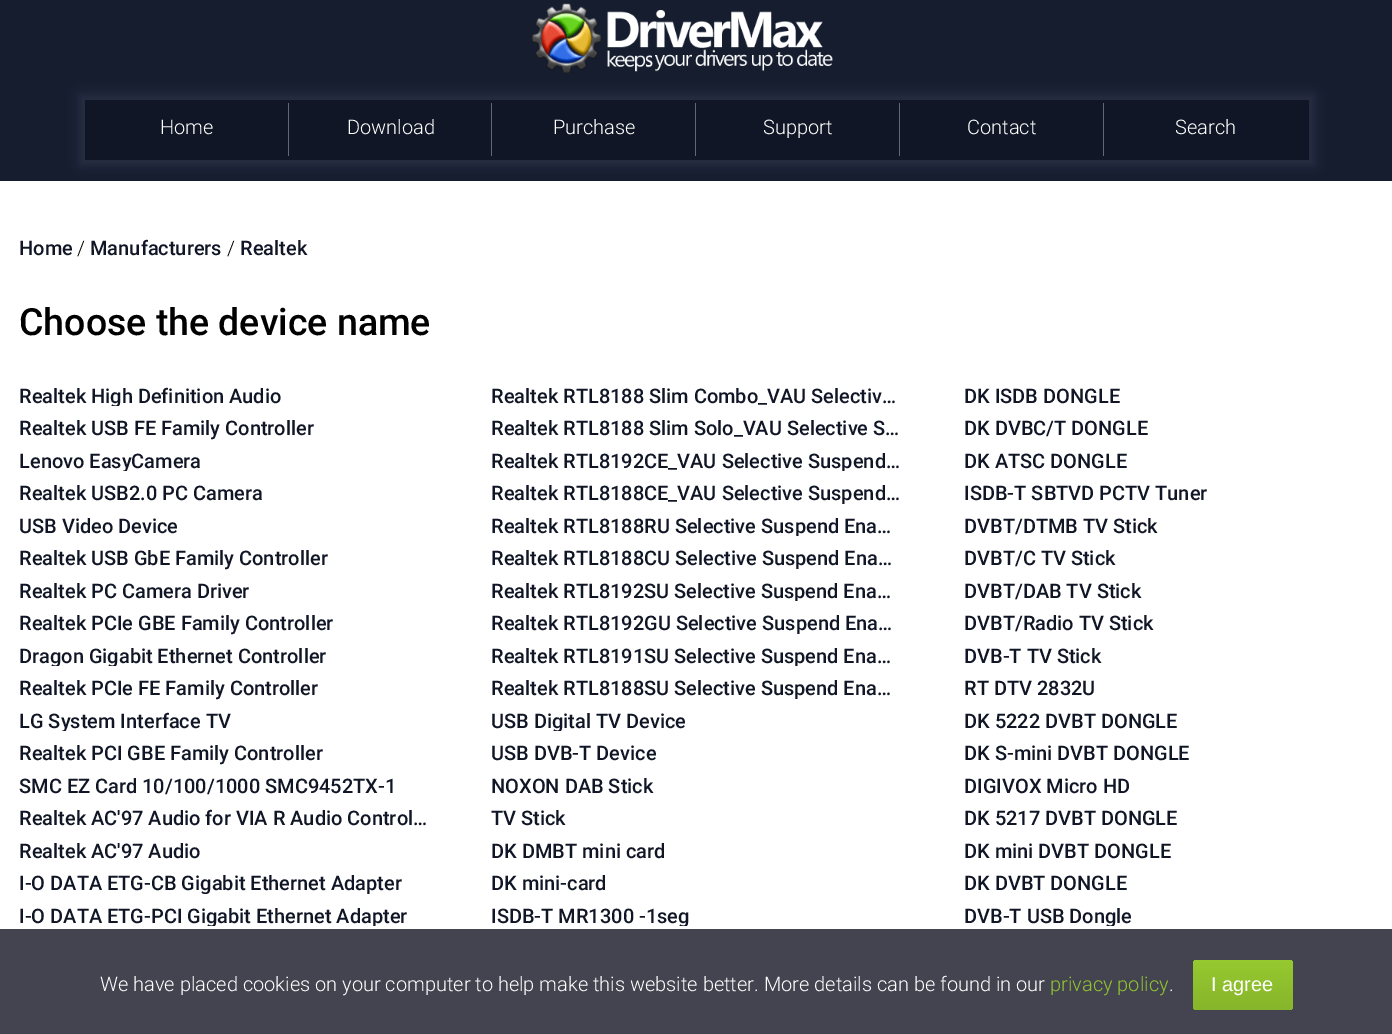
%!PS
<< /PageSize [1392 1034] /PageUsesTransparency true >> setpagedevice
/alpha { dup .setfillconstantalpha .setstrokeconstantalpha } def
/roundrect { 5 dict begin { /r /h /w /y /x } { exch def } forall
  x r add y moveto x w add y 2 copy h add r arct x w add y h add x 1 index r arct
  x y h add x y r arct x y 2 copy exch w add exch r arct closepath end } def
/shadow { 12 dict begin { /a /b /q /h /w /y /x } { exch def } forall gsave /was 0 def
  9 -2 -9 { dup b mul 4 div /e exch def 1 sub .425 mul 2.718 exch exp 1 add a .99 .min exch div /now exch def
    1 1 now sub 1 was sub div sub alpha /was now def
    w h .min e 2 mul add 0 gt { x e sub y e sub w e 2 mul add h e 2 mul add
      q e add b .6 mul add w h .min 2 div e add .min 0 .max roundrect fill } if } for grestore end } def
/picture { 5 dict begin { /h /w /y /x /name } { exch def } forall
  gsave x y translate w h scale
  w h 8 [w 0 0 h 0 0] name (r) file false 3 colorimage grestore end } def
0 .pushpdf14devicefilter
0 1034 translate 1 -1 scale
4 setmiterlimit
1 setgray
0 0 1392 1034 rectfill
0.263 0.267 0.314 setrgbcolor
0 929 1392 105 rectfill
0.082 0.114 0.184 setrgbcolor
0 0 1392 181 rectfill
(img1.rgb) 532 3 69 70 picture
(img2.rgb) 607 10 226 62 picture
0.161 0.188 0.267 setrgbcolor
80 95 1234 70 0 6 1 shadow
0.063 0.086 0.145 setrgbcolor
85 100 1224 60 rectfill
/Roboto-Light [20 0 0 -20 0 0] selectfont
1 setgray
160 134 moveto (Home) show
0.388 0.404 0.443 setrgbcolor
288 103 1 53 rectfill
1 setgray
347 134 moveto (Download) show
0.388 0.404 0.443 setrgbcolor
491 103 1 53 rectfill
1 setgray
553 134 moveto (Purchase) show
0.388 0.404 0.443 setrgbcolor
695 103 1 53 rectfill
1 setgray
763 134 moveto (Support) show
0.388 0.404 0.443 setrgbcolor
899 103 1 53 rectfill
1 setgray
967 134 moveto (Contact) show
0.388 0.404 0.443 setrgbcolor
1103 103 1 53 rectfill
1 setgray
1175 134 moveto (Search) show
/Roboto-Medium [20 0 0 -20 0 0] selectfont
0.063 0.086 0.145 setrgbcolor
19 255 moveto (Home) show
/Roboto-Light [20 0 0 -20 0 0] selectfont
0 setgray
77 255 moveto (/) show
/Roboto-Medium [20 0 0 -20 0 0] selectfont
0.063 0.086 0.145 setrgbcolor
90 255 moveto (Manufacturers) show
/Roboto-Light [20 0 0 -20 0 0] selectfont
0 setgray
227 255 moveto (/) show
/Roboto-Medium [20 0 0 -20 0 0] selectfont
0.063 0.086 0.145 setrgbcolor
240 255 moveto (Realtek) show
/Roboto-Medium [37.5 0 0 -37.5 0 0] selectfont
0 setgray
19 335 moveto (Choose the device name) show
gsave
19 386 410 20 rectclip
/Roboto-Medium [20 0 0 -20 0 0] selectfont
0.063 0.086 0.145 setrgbcolor
19 403 moveto (Realtek High Definition Audio) show
grestore
/Roboto-Medium [20 0 0 -20 0 0] selectfont
0.063 0.086 0.145 setrgbcolor
491 403 moveto (Realtek RTL8188 Slim Combo_VAU Selectiv…) show
964 403 moveto (DK ISDB DONGLE) show
19 435 moveto (Realtek USB FE Family Controller) show
491 435 moveto (Realtek RTL8188 Slim Solo_VAU Selective S…) show
964 435 moveto (DK DVBC/T DONGLE) show
gsave
19 451 410 20 rectclip
19 468 moveto (Lenovo EasyCamera) show
grestore
gsave
491 451 410 20 rectclip
491 468 moveto (Realtek RTL8192CE_VAU Selective Suspend…) show
grestore
964 468 moveto (DK ATSC DONGLE) show
19 500 moveto (Realtek USB2.0 PC Camera) show
491 500 moveto (Realtek RTL8188CE_VAU Selective Suspend…) show
964 500 moveto (ISDB-T SBTVD PCTV Tuner) show
19 533 moveto (USB Video Device) show
gsave
491 516 410 20 rectclip
491 533 moveto (Realtek RTL8188RU Selective Suspend Ena…) show
grestore
964 533 moveto (DVBT/DTMB TV Stick) show
19 565 moveto (Realtek USB GbE Family Controller) show
491 565 moveto (Realtek RTL8188CU Selective Suspend Ena…) show
964 565 moveto (DVBT/C TV Stick) show
19 598 moveto (Realtek PC Camera Driver) show
gsave
491 581 410 20 rectclip
491 598 moveto (Realtek RTL8192SU Selective Suspend Ena…) show
grestore
964 598 moveto (DVBT/DAB TV Stick) show
19 630 moveto (Realtek PCIe GBE Family Controller) show
491 630 moveto (Realtek RTL8192GU Selective Suspend Ena…) show
964 630 moveto (DVBT/Radio TV Stick) show
gsave
19 646 410 20 rectclip
19 663 moveto (Dragon Gigabit Ethernet Controller) show
grestore
gsave
491 646 410 20 rectclip
491 663 moveto (Realtek RTL8191SU Selective Suspend Ena…) show
grestore
964 663 moveto (DVB-T TV Stick) show
19 695 moveto (Realtek PCIe FE Family Controller) show
491 695 moveto (Realtek RTL8188SU Selective Suspend Ena…) show
964 695 moveto (RT DTV 2832U) show
gsave
19 711 410 20 rectclip
19 728 moveto (LG System Interface TV) show
grestore
gsave
491 711 410 20 rectclip
491 728 moveto (USB Digital TV Device) show
grestore
964 728 moveto (DK 5222 DVBT DONGLE) show
19 760 moveto (Realtek PCI GBE Family Controller) show
491 760 moveto (USB DVB-T Device) show
964 760 moveto (DK S-mini DVBT DONGLE) show
19 793 moveto (SMC EZ Card 10/100/1000 SMC9452TX-1) show
491 793 moveto (NOXON DAB Stick) show
964 793 moveto (DIGIVOX Micro HD) show
19 825 moveto (Realtek AC'97 Audio for VIA R Audio Control…) show
491 825 moveto (TV Stick) show
964 825 moveto (DK 5217 DVBT DONGLE) show
19 858 moveto (Realtek AC'97 Audio) show
491 858 moveto (DK DMBT mini card) show
964 858 moveto (DK mini DVBT DONGLE) show
gsave
19 874 410 20 rectclip
19 890 moveto (I-O DATA ETG-CB Gigabit Ethernet Adapter) show
grestore
491 890 moveto (DK mini-card) show
964 890 moveto (DK DVBT DONGLE) show
gsave
19 906 410 20 rectclip
19 923 moveto (I-O DATA ETG-PCI Gigabit Ethernet Adapter) show
grestore
gsave
491 906 410 20 rectclip
491 923 moveto (ISDB-T MR1300 -1seg) show
grestore
gsave
964 906 410 20 rectclip
964 923 moveto (DVB-T USB Dongle) show
grestore
/Roboto-Light [20 0 0 -20 0 0] selectfont
1 setgray
100 991 moveto (We have placed cookies on your computer to help make this website better. More details can be found in our) show
0.573 0.769 0.184 setrgbcolor
1050 991 moveto (privacy policy) show
1 setgray
1169 991 moveto (.) show
0.525 0.706 0.169 setrgbcolor
1193 960 100 50 4 roundrect fill
0.99 alpha
gsave 1193 960 100 50 4 roundrect clip newpath
<< /ShadingType 2 /ColorSpace /DeviceRGB /Coords [1243 1010 1243 960] /Extend [true true] /Function << /FunctionType 2 /Domain [0 1] /C0 [0.529 0.71 0.169] /C1 [0.588 0.788 0.188] /N 1 >> >> shfill grestore
/LiberationSans-Regular [20 0 0 -20 0 0] selectfont
1 alpha
1 setgray
1211 991 moveto (I agree) show
.poppdf14devicefilter showpage
